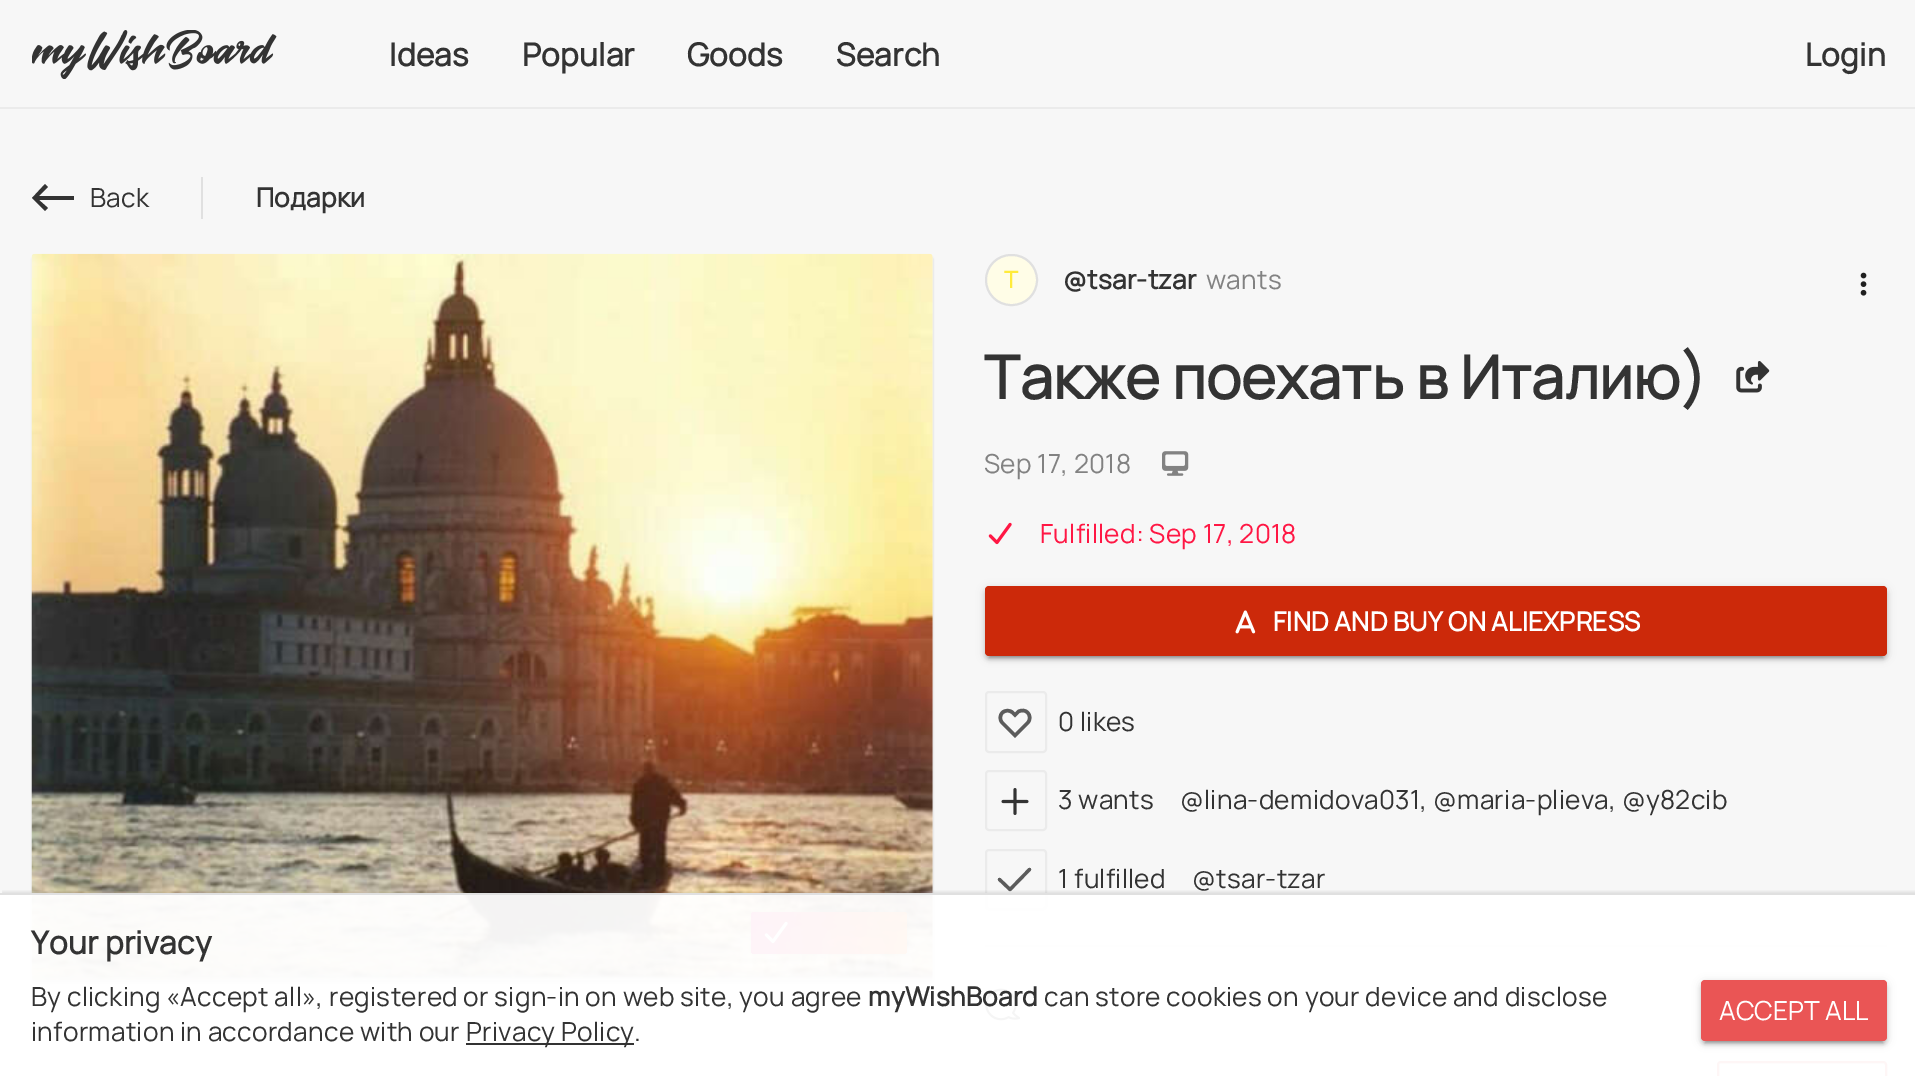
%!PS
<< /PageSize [1915 1076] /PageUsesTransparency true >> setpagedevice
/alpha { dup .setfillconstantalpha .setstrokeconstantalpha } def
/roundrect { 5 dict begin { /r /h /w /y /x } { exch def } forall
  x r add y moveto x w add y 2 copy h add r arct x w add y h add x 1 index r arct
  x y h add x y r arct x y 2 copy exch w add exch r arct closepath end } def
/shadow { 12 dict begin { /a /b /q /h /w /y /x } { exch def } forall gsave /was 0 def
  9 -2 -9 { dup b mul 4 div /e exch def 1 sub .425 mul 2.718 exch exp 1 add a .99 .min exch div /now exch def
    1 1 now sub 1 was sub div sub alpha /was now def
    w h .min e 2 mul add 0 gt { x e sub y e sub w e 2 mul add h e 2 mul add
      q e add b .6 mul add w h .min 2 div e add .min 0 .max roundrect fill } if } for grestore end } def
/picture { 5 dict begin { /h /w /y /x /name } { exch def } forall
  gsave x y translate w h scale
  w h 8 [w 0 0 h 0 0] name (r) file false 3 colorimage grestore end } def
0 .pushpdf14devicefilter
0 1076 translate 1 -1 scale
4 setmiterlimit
0.969 setgray
0 0 1915 1076 rectfill
0.922 setgray
0 107 1915 2 rectfill
(img1.rgb) 32 30 245 49 picture
/Manrope-Bold [31.5 0 0 -31.5 0 0] selectfont
0.2 setgray
389 66 moveto 0.25 0 (Ideas) ashow
522 66 moveto 0.25 0 (Popular) ashow
687 66 moveto 0.25 0 (Goods) ashow
836 66 moveto 0.25 0 (Search) ashow
1805 66 moveto 0.25 0 (Login) ashow
newpath 74 200 moveto 39 200 lineto 48 208 lineto 45 211 lineto 32 198 lineto 45 184 lineto 48 187 lineto 39 196 lineto 74 196 lineto closepath eofill
/Manrope-ExtraLight [26.25 0 0 -26.25 0 0] selectfont
90 207 moveto 0.25 0 (Back) ashow
0.878 setgray
201 177 2 42 rectfill
/Manrope-Bold [26.25 0 0 -26.25 0 0] selectfont
0.2 setgray
256 207 moveto 0.25 0 (Подарки) ashow
0 setgray
32 256 901 726 4 1 0.15 shadow
0.941 setgray
32 254 901 726 4 roundrect fill
(img2.rgb) 31 253 902 727 picture
gsave
newpath 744 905 moveto 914 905 lineto 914 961 lineto 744 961 lineto closepath 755 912 moveto 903 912 lineto 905 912 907 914 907 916 curveto 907 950 lineto 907 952 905 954 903 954 curveto 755 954 lineto 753 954 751 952 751 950 curveto 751 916 lineto 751 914 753 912 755 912 curveto closepath eoclip newpath
0 setgray
751 912 156 42 4 2 0.25 shadow
grestore
0.9 alpha
gsave 751 912 156 42 4 roundrect clip newpath
<< /ShadingType 2 /ColorSpace /DeviceRGB /Coords [751 933 907 933] /Extend [true true] /Function << /FunctionType 2 /Domain [0 1] /C0 [0.933 0.035 0.475] /C1 [1 0.416 0] /N 1 >> >> shfill grestore
1 alpha
(img3.rgb) 764 921 24 23 picture
1 0.992 0.906 setrgbcolor
986 255 51 50 25 roundrect gsave fill grestore
0.878 setgray
2 setlinewidth
stroke
/Manrope-Bold [23 0 0 -23 0 0] selectfont
1 0.922 0.231 setrgbcolor
1004 288 moveto 0.25 0 (T) ashow
/Manrope-Bold [26.25 0 0 -26.25 0 0] selectfont
0.2 setgray
1063 289 moveto 0.25 0 (@tsar-tzar) ashow
/Manrope-ExtraLight [26.25 0 0 -26.25 0 0] selectfont
0.51 setgray
1206 289 moveto 0.25 0 (wants) ashow
(img4.rgb) 1860 272 7 24 picture
/Manrope-Bold [59.5 0 0 -59.5 0 0] selectfont
0.2 setgray
984 399 moveto 0.25 0 (Также поехать в Италию\)) ashow
(img5.rgb) 1736 361 34 32 picture
/Manrope-ExtraLight [26.25 0 0 -26.25 0 0] selectfont
0.51 setgray
984 473 moveto 0.25 0 (Sep 17, 2018) ashow
(img6.rgb) 1162 451 27 25 picture
(img7.rgb) 988 522 24 23 picture
1 0.09 0.267 setrgbcolor
1040 543 moveto 0.25 0 (Fulfilled: Sep 17, 2018) ashow
0 setgray
985 588 902 70 4 4.5 0.12 shadow
985 590 902 70 4 2 0.14 shadow
989 595 894 63 0 1 0.2 shadow
0.8 0.161 0.039 setrgbcolor
985 586 902 70 4 roundrect fill
(img8.rgb) 1235 610 21 24 picture
/Manrope-Bold [26.25 0 0 -26.25 0 0] selectfont
1 setgray
1273 631 moveto 0.25 0 (FIND AND BUY ON ALIEXPRESS) ashow
0.922 setgray
986 692 60 60 3 roundrect stroke
0.361 setgray
3.5 setlinewidth
1 setlinecap
newpath 1002.5 712.5 moveto 1005.5 710 1009.5 710 1012.5 712.5 curveto 1015 715 lineto 1018.5 711.5 lineto 1021.5 710 1025 710 1027.5 712.5 curveto 1030.5 715.5 1030.5 720 1027.5 723 curveto 1015 735.5 lineto 1002.5 723 lineto 999.5 720 999.5 715.5 1002.5 712.5 curveto closepath stroke
/Manrope-ExtraLight [26.25 0 0 -26.25 0 0] selectfont
0.2 setgray
1058 731 moveto 0.25 0 (0 likes) ashow
0.922 setgray
2 setlinewidth
0 setlinecap
986 771 60 59 3 roundrect stroke
(img9.rgb) 1001 788 28 27 picture
0.2 setgray
1058 809 moveto 0.25 0 (3 wants) ashow
1180 809 moveto 0.25 0 (@lina-demidova031, @maria-plieva, @y82cib) ashow
0.922 setgray
986 850 60 59 3 roundrect stroke
0.361 setgray
3.3 setlinewidth
1 setlinecap
1 setlinejoin
newpath 999.5 879.5 moveto 1010 889.5 lineto 1029.5 869.5 lineto stroke
0.2 setgray
1058 888 moveto 0.25 0 (1 fulfilled) ashow
1192 888 moveto 0.25 0 (@tsar-tzar) ashow
0.922 setgray
985 945 902 2 rectfill
(img10.rgb) 985 988 35 33 picture
0.918 0.333 0.333 setrgbcolor
2 setlinewidth
0 setlinecap
0 setlinejoin
1718 1062 168 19 3 roundrect stroke
gsave
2 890 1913 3 rectclip
0 setgray
2 893 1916 183 0 2.5 0.15 shadow
grestore
0.95 alpha
1 setgray
0 895 1915 181 rectfill
1 alpha
0.878 setgray
0 893 1915 2 rectfill
/Manrope-Bold [31.5 0 0 -31.5 0 0] selectfont
0.2 setgray
31 954 moveto 0.25 0 (Your privacy) ashow
/Manrope-ExtraLight [26.25 0 0 -26.25 0 0] selectfont
31 1006 moveto 0.25 0 (By clicking «Accept all», registered or sign-in on web site, you agree) ashow
/Manrope-Bold [26.25 0 0 -26.25 0 0] selectfont
868 1006 moveto 0.25 0 (myWishBoard) ashow
/Manrope-ExtraLight [26.25 0 0 -26.25 0 0] selectfont
1044 1006 moveto 0.25 0 (can store cookies on your device and disclose) ashow
31 1041 moveto 0.25 0 (information in accordance with our) ashow
466 1043 168 2 rectfill
466 1041 moveto 0.25 0 (Privacy Policy.) ashow
0 setgray
1701 982 186 61 4 4.5 0.12 shadow
1701 984 186 61 4 2 0.14 shadow
1705 989 178 54 0 1 0.2 shadow
0.918 0.333 0.333 setrgbcolor
1701 980 186 61 4 roundrect fill
1 setgray
1719 1020 moveto (ACCEPT ALL) show
.poppdf14devicefilter showpage
